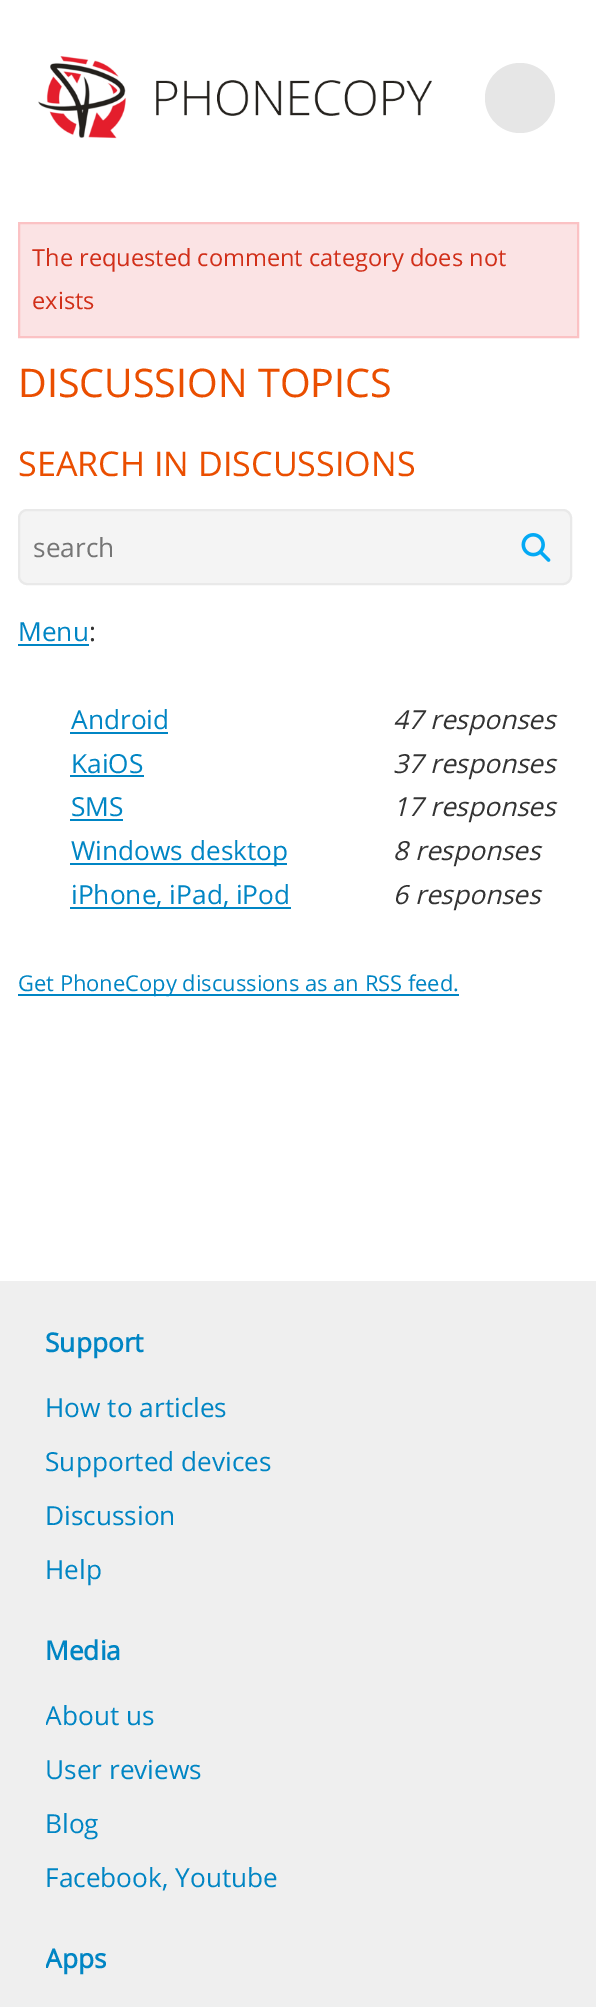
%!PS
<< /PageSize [596 2007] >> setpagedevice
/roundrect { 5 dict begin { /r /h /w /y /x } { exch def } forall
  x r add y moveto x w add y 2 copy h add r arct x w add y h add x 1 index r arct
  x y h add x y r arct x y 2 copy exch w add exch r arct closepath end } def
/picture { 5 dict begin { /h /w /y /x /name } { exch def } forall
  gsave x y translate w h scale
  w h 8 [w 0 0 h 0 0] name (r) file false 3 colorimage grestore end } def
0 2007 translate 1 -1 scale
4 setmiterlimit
1 setgray
0 0 596 2007 rectfill
(img1.rgb) 38 56 394 83 picture
0.902 setgray
newpath 520 98 35 0 360 arc closepath fill
0.984 0.89 0.894 setrgbcolor
newpath 19 223 moveto 578 223 lineto 578 337 lineto 19 337 lineto closepath gsave fill grestore
0.984 0.761 0.769 setrgbcolor
2 setlinewidth
stroke
/OpenSans-Regular [23.6 0 0 -23.6 0 0] selectfont
0.82 0.184 0.098 setrgbcolor
32 266 moveto (The requested comment category does not) show
32 309 moveto (exists) show
/OpenSans-Regular [39.4 0 0 -39.4 0 0] selectfont
0.918 0.306 0 setrgbcolor
18 397 moveto (DISCUSSION TOPICS) show
/OpenSans-Regular [34.1 0 0 -34.1 0 0] selectfont
18 476 moveto (SEARCH IN DISCUSSIONS) show
0.957 setgray
19 510 552 74 8 roundrect gsave fill grestore
0.914 setgray
stroke
/OpenSans-Regular [26.25 0 0 -26.25 0 0] selectfont
0.459 setgray
33 557 moveto (search) show
(img2.rgb) 521 533 30 29 picture
0 0.522 0.769 setrgbcolor
18 641 moveto (Menu) show
18 644 71 2 rectfill
0.2 setgray
89 641 moveto (:) show
0 0.522 0.769 setrgbcolor
71 729 moveto (Android) show
70 732 98 2 rectfill
/OpenSans-Italic [26.25 0 0 -26.25 0 0] selectfont
0.2 setgray
393 729 moveto (47 responses) show
/OpenSans-Regular [26.25 0 0 -26.25 0 0] selectfont
0 0.522 0.769 setrgbcolor
71 773 moveto (KaiOS) show
70 775 74 2 rectfill
/OpenSans-Italic [26.25 0 0 -26.25 0 0] selectfont
0.2 setgray
393 773 moveto (37 responses) show
/OpenSans-Regular [26.25 0 0 -26.25 0 0] selectfont
0 0.522 0.769 setrgbcolor
71 816 moveto (SMS) show
70 819 53 2 rectfill
/OpenSans-Italic [26.25 0 0 -26.25 0 0] selectfont
0.2 setgray
393 816 moveto (17 responses) show
0 0.522 0.769 setrgbcolor
70 863 217 2 rectfill
/OpenSans-Regular [26.25 0 0 -26.25 0 0] selectfont
71 860 moveto (Windows desktop) show
/OpenSans-Italic [26.25 0 0 -26.25 0 0] selectfont
0.2 setgray
393 860 moveto (8 responses) show
0 0.522 0.769 setrgbcolor
70 907 221 2 rectfill
/OpenSans-Regular [26.25 0 0 -26.25 0 0] selectfont
71 904 moveto (iPhone, iPad, iPod) show
/OpenSans-Italic [26.25 0 0 -26.25 0 0] selectfont
0.2 setgray
393 904 moveto (6 responses) show
0 0.522 0.769 setrgbcolor
18 994 441 2 rectfill
/OpenSans-Regular [21.9 0 0 -21.9 0 0] selectfont
18 991 moveto (Get PhoneCopy discussions as an RSS feed.) show
0.937 setgray
0 1281 596 726 rectfill
/OpenSans-Bold [26.25 0 0 -26.25 0 0] selectfont
0 0.522 0.769 setrgbcolor
45 1352 moveto (Support) show
/OpenSans-Regular [26.25 0 0 -26.25 0 0] selectfont
45 1417 moveto (How to articles) show
45 1471 moveto (Supported devices) show
45 1525 moveto (Discussion) show
45 1579 moveto (Help) show
/OpenSans-Bold [26.25 0 0 -26.25 0 0] selectfont
45 1660 moveto (Media) show
gsave
46 1281 547 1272 rectclip
/OpenSans-Regular [26.25 0 0 -26.25 0 0] selectfont
45 1725 moveto (About us) show
grestore
/OpenSans-Regular [26.25 0 0 -26.25 0 0] selectfont
45 1779 moveto (User reviews) show
45 1833 moveto (Blog) show
45 1887 moveto (Facebook, Youtube) show
gsave
46 1281 547 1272 rectclip
/OpenSans-Bold [26.25 0 0 -26.25 0 0] selectfont
45 1968 moveto (Apps) show
grestore
showpage
